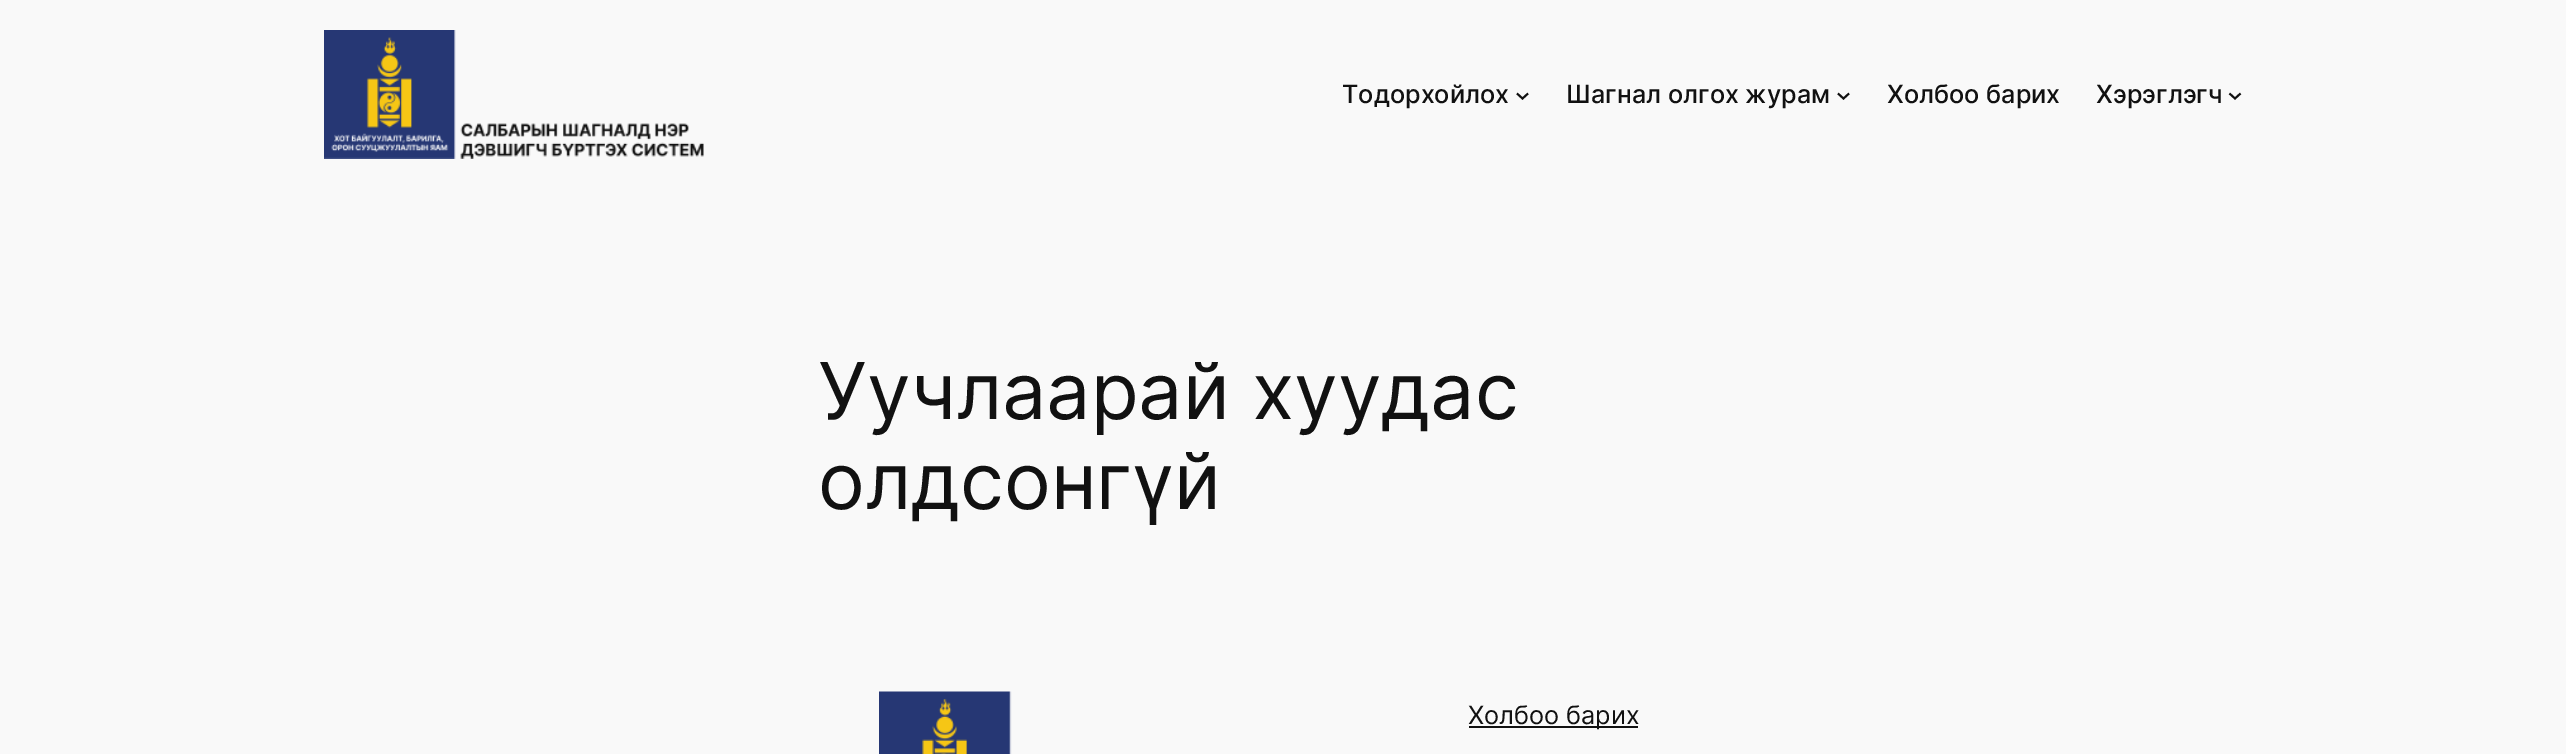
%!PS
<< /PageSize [2566 754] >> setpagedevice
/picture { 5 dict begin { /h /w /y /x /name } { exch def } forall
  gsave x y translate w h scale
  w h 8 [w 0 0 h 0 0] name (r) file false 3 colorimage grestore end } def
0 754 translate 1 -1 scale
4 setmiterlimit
0.976 setgray
0 0 2566 754 rectfill
(img1.rgb) 324 30 380 129 picture
/Inter-Medium [25.25 0 0 -25.25 0 0] selectfont
0.067 setgray
1342 103 moveto (Тодорхойлох) show
1.9 setlinewidth
newpath 1517 93.5 moveto 1522.5 98.5 lineto 1528 93.5 lineto stroke
1566 103 moveto (Шагнал олгох журам) show
newpath 1838 93.5 moveto 1843.5 98.5 lineto 1849 93.5 lineto stroke
1887 103 moveto (Холбоо барих) show
2096 103 moveto (Хэрэглэгч) show
newpath 2229.5 93.5 moveto 2235 98.5 lineto 2240.5 93.5 lineto stroke
/Inter-Regular [78.5 0 0 -78.5 0 0] selectfont
818 419 moveto (Уучлаарай хуудас) show
818 509 moveto (олдсонгүй) show
(img2.rgb) 879 691 133 63 picture
1469 726 169 2 rectfill
/Inter-Regular [25.25 0 0 -25.25 0 0] selectfont
1468 724 moveto (Холбоо барих) show
showpage
